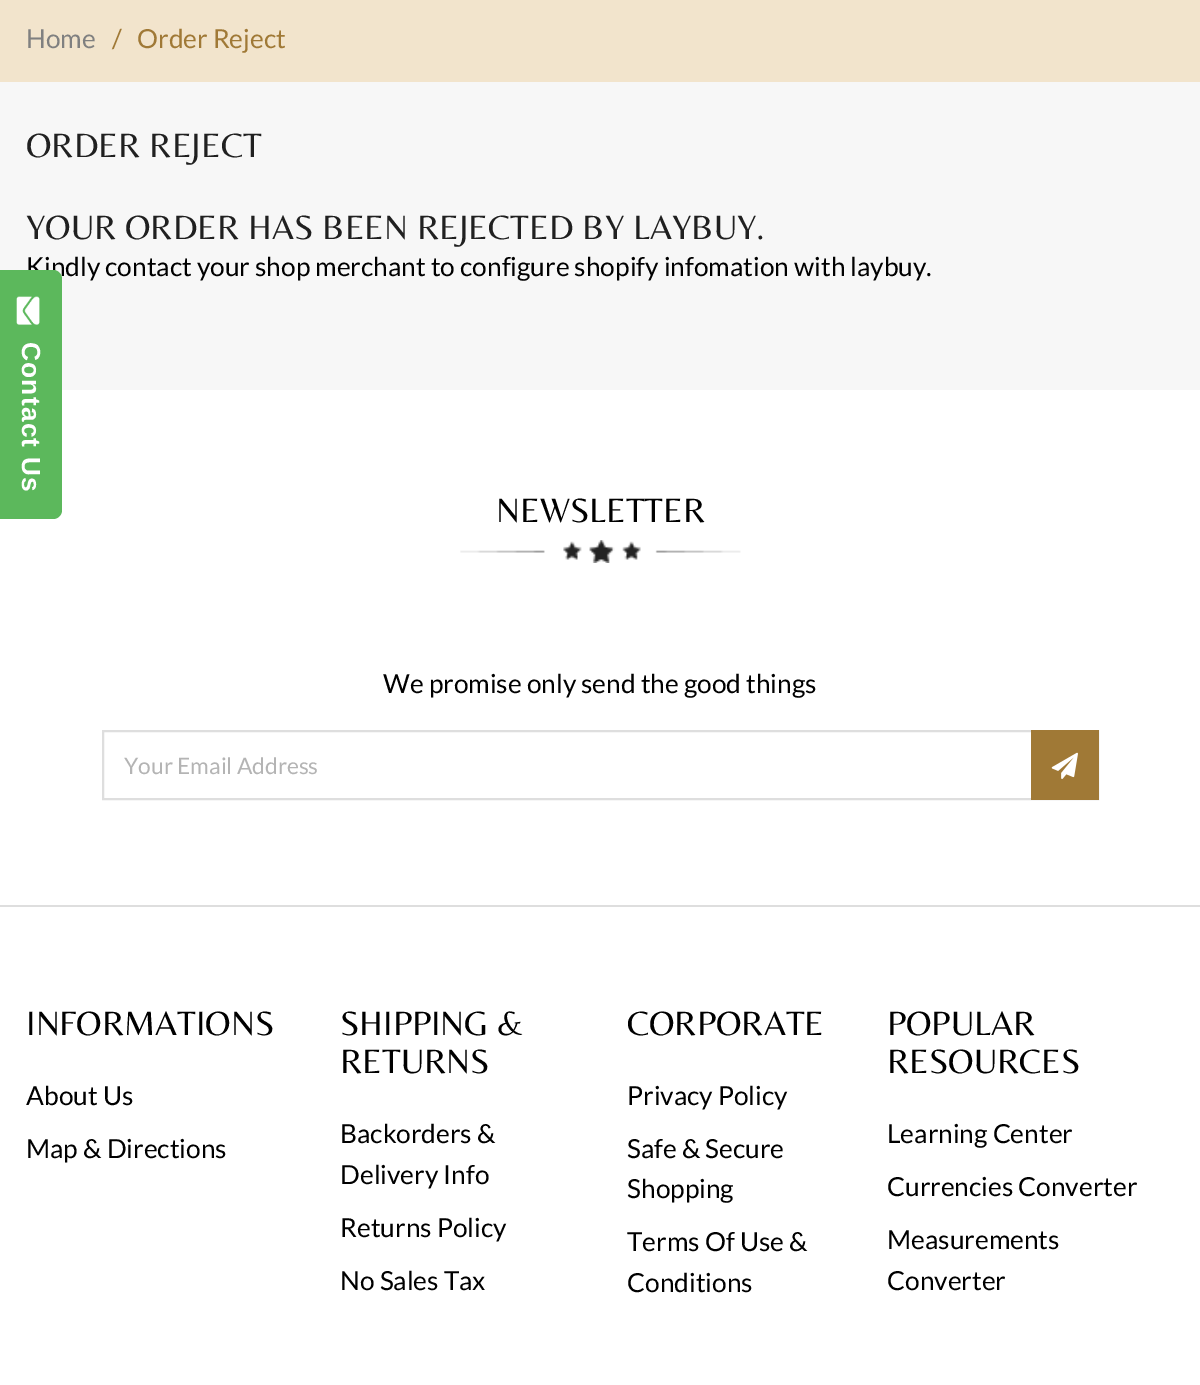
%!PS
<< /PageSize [1200 1385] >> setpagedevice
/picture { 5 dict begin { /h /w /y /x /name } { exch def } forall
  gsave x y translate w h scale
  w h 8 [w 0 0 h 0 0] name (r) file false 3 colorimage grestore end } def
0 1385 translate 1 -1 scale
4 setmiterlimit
1 setgray
0 0 1200 1385 rectfill
0.949 0.894 0.8 setrgbcolor
0 0 1200 82 rectfill
/Lato-Regular [26.25 0 0 -26.25 0 0] selectfont
0.502 setgray
26 48 moveto (Home) show
0.627 0.475 0.212 setrgbcolor
112 48 moveto (/) show
137 48 moveto (Order Reject) show
0.969 setgray
0 82 1200 308 rectfill
/Belleza-Regular [35 0 0 -35 0 0] selectfont
0.125 setgray
26 157 moveto (ORDER REJECT) show
26 239 moveto (YOUR ORDER HAS BEEN REJECTED BY LAYBUY.) show
/Lato-Regular [26.25 0 0 -26.25 0 0] selectfont
0 setgray
26 276 moveto (Kindly contact your shop merchant to configure shopify infomation with laybuy.) show
0.361 0.722 0.361 setrgbcolor
newpath 62 279 moveto 62 510 lineto 62 515 58 519 53 519 curveto 0 519 lineto 0 270 lineto 53 270 lineto 58 270 62 274 62 279 curveto closepath fill
(img1.rgb) 16 296 24 29 picture
/LiberationSans-Bold [26.25 0 0 -26.25 0 0] selectfont
1 setgray
gsave 22 342 translate 90 rotate 0 0 moveto 1.25 0 (Contact Us) ashow grestore
/Belleza-Regular [35 0 0 -35 0 0] selectfont
0 setgray
496 522 moveto (NEWSLETTER) show
(img2.rgb) 460 540 281 23 picture
0.871 setgray
0 905 1200 2 rectfill
/Lato-Regular [26.25 0 0 -26.25 0 0] selectfont
0 setgray
383 693 moveto (We promise only send the good things) show
0.871 setgray
2 setlinewidth
103 731 995 68 rectstroke
/Lato-Regular [22.75 0 0 -22.75 0 0] selectfont
0.706 setgray
124 774 moveto (Your Email Address) show
0.627 0.475 0.212 setrgbcolor
1031 730 68 70 rectfill
(img3.rgb) 1051 752 27 27 picture
/Belleza-Regular [35 0 0 -35 0 0] selectfont
0 setgray
26 1035 moveto (INFORMATIONS) show
/Lato-Regular [26.25 0 0 -26.25 0 0] selectfont
26 1105 moveto (About Us) show
26 1158 moveto (Map & Directions) show
/Belleza-Regular [35 0 0 -35 0 0] selectfont
340 1035 moveto (SHIPPING &) show
340 1073 moveto (RETURNS) show
/Lato-Regular [26.25 0 0 -26.25 0 0] selectfont
340 1143 moveto (Backorders &) show
340 1184 moveto (Delivery Info) show
340 1237 moveto (Returns Policy) show
340 1290 moveto (No Sales Tax) show
/Belleza-Regular [35 0 0 -35 0 0] selectfont
627 1035 moveto (CORPORATE) show
/Lato-Regular [26.25 0 0 -26.25 0 0] selectfont
627 1105 moveto (Privacy Policy) show
627 1158 moveto (Safe & Secure) show
627 1198 moveto (Shopping) show
627 1251 moveto (Terms Of Use &) show
627 1292 moveto (Conditions) show
/Belleza-Regular [35 0 0 -35 0 0] selectfont
887 1035 moveto (POPULAR) show
887 1073 moveto (RESOURCES) show
/Lato-Regular [26.25 0 0 -26.25 0 0] selectfont
887 1143 moveto (Learning Center) show
887 1196 moveto (Currencies Converter) show
887 1249 moveto (Measurements) show
887 1290 moveto (Converter) show
showpage
